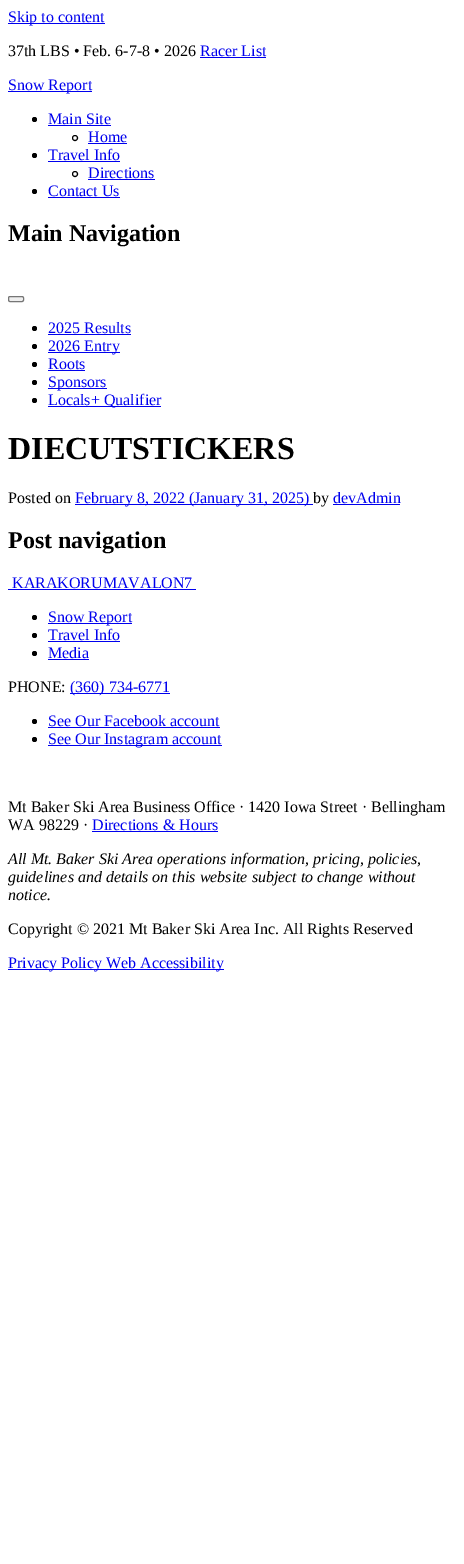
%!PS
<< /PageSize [464 1564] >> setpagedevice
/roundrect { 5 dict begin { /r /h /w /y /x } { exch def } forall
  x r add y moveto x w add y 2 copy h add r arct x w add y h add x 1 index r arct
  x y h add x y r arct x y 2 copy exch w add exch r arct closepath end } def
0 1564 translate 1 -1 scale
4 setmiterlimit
1 setgray
0 0 464 1564 rectfill
0 0 0.933 setrgbcolor
8 23 97 1 rectfill
/LiberationSerif-Regular [16 0 0 -16 0 0] selectfont
8 22 moveto (Skip to content) show
0 setgray
8 56 moveto (37th LBS • Feb. 6-7-8 • 2026) show
0 0 0.933 setrgbcolor
200 56 moveto (Racer List) show
200 57 66 1 rectfill
8 91 84 1 rectfill
8 90 moveto (Snow Report) show
0 setgray
newpath 34.5 119.5 2.5 0 360 arc closepath fill
0 0 0.933 setrgbcolor
48 124 moveto (Main Site) show
48 125 63 1 rectfill
0 setgray
newpath 75 138 2.5 0 360 arc closepath stroke
0 0 0.933 setrgbcolor
88 142 moveto (Home) show
88 143 39 1 rectfill
0 setgray
newpath 34.5 155.5 2.5 0 360 arc closepath fill
0 0 0.933 setrgbcolor
48 160 moveto (Travel Info) show
48 161 72 1 rectfill
0 setgray
newpath 75 174 2.5 0 360 arc closepath stroke
0 0 0.933 setrgbcolor
88 178 moveto (Directions) show
88 179 67 1 rectfill
0 setgray
newpath 34.5 191.5 2.5 0 360 arc closepath fill
0 0 0.933 setrgbcolor
48 196 moveto (Contact Us) show
48 197 72 1 rectfill
/LiberationSerif-Bold [24 0 0 -24 0 0] selectfont
0 setgray
8 241 moveto (Main Navigation) show
0.937 setgray
8.5 296.5 15 5 1.5 roundrect gsave fill grestore
0.463 setgray
stroke
0 setgray
newpath 34.5 328.5 2.5 0 360 arc closepath fill
/LiberationSerif-Regular [16 0 0 -16 0 0] selectfont
0 0 0.933 setrgbcolor
48 333 moveto (2025 Results) show
48 334 83 1 rectfill
0 setgray
newpath 34.5 346.5 2.5 0 360 arc closepath fill
0 0 0.933 setrgbcolor
48 352 72 1 rectfill
48 351 moveto (2026 Entry) show
0 setgray
newpath 34.5 364.5 2.5 0 360 arc closepath fill
0 0 0.933 setrgbcolor
48 369 moveto (Roots) show
48 370 37 1 rectfill
0 setgray
newpath 34.5 382.5 2.5 0 360 arc closepath fill
0 0 0.933 setrgbcolor
48 388 59 1 rectfill
48 387 moveto (Sponsors) show
0 setgray
newpath 34.5 400.5 2.5 0 360 arc closepath fill
0 0 0.933 setrgbcolor
48 406 113 1 rectfill
48 405 moveto (Locals+ Qualifier) show
/LiberationSerif-Bold [32 0 0 -32 0 0] selectfont
0 setgray
8 459 moveto (DIECUTSTICKERS) show
/LiberationSerif-Regular [16 0 0 -16 0 0] selectfont
8 503 moveto (Posted on) show
0 0 0.933 setrgbcolor
75 504 238 1 rectfill
75 503 moveto (February 8, 2022 \(January 31, 2025\)) show
0 setgray
313 503 moveto (by) show
0 0 0.933 setrgbcolor
333 503 moveto (devAdmin) show
333 504 67 1 rectfill
/LiberationSerif-Bold [24 0 0 -24 0 0] selectfont
0 setgray
8 548 moveto (Post navigation) show
/LiberationSerif-Regular [16 0 0 -16 0 0] selectfont
0 0 0.933 setrgbcolor
12 588 moveto (KARAKORUMAVALON7) show
8 589 188 1 rectfill
0 setgray
newpath 34.5 617.5 2.5 0 360 arc closepath fill
0 0 0.933 setrgbcolor
48 623 84 1 rectfill
48 622 moveto (Snow Report) show
0 setgray
newpath 34.5 635.5 2.5 0 360 arc closepath fill
0 0 0.933 setrgbcolor
48 640 moveto (Travel Info) show
48 641 72 1 rectfill
0 setgray
newpath 34.5 653.5 2.5 0 360 arc closepath fill
0 0 0.933 setrgbcolor
48 658 moveto (Media) show
48 659 41 1 rectfill
0 setgray
8 692 moveto (PHONE:) show
0 0 0.933 setrgbcolor
70 693 100 1 rectfill
70 692 moveto (\(360\) 734-6771) show
0 setgray
newpath 34.5 721.5 2.5 0 360 arc closepath fill
0 0 0.933 setrgbcolor
48 726 moveto (See Our Facebook account) show
48 727 172 1 rectfill
0 setgray
newpath 34.5 739.5 2.5 0 360 arc closepath fill
0 0 0.933 setrgbcolor
48 745 174 1 rectfill
48 744 moveto (See Our Instagram account) show
0 setgray
8 812 moveto (Mt Baker Ski Area Business Office · 1420 Iowa Street · Bellingham) show
8 830 moveto (WA 98229 ·) show
0 0 0.933 setrgbcolor
92 830 moveto (Directions & Hours) show
92 831 126 1 rectfill
/LiberationSerif-Italic [16 0 0 -16 0 0] selectfont
0 setgray
8 864 moveto (All Mt. Baker Ski Area operations information, pricing, policies,) show
8 882 moveto (guidelines and details on this website subject to change without) show
8 900 moveto (notice.) show
/LiberationSerif-Regular [16 0 0 -16 0 0] selectfont
8 934 moveto (Copyright © 2021 Mt Baker Ski Area Inc. All Rights Reserved) show
0 0 0.933 setrgbcolor
8 969 216 1 rectfill
8 968 moveto (Privacy Policy Web Accessibility) show
showpage
